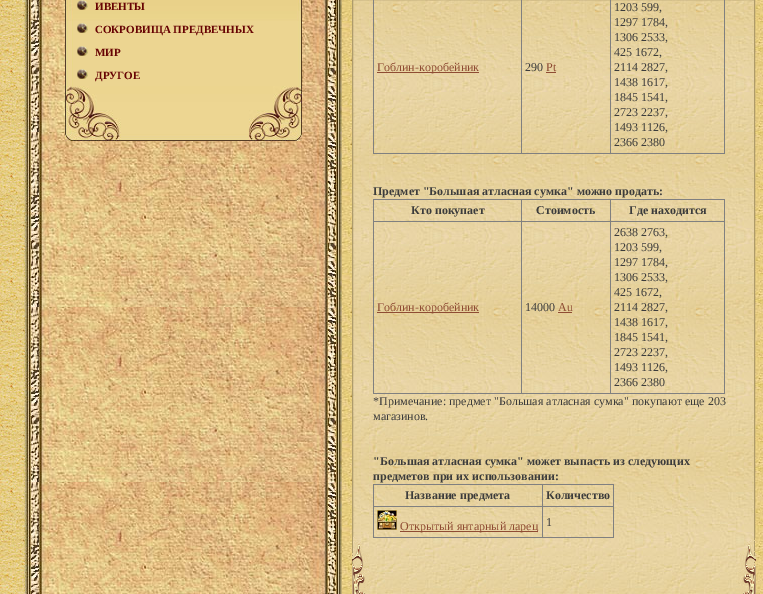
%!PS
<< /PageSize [763 594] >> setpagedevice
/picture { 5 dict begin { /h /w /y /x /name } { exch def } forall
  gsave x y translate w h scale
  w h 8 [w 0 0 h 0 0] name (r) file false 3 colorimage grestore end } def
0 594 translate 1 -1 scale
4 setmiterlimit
1 setgray
0 0 763 594 rectfill
(img1.rgb) 342 0 421 594 picture
(img2.rgb) 0 0 25 594 picture
(img3.rgb) 25 0 317 594 picture
(img4.rgb) 65 21 237 65 picture
(img5.rgb) 65 0 237 21 picture
(img6.rgb) 77 0 11 10 picture
/LiberationSerif-Bold [11 0 0 -11 0 0] selectfont
0.404 0.012 0.012 setrgbcolor
95 10 moveto (ИВЕНТЫ) show
(img7.rgb) 77 23 11 10 picture
95 33 moveto (СОКРОВИЩА ПРЕДВЕЧНЫХ) show
(img7.rgb) 77 46 11 10 picture
95 56 moveto (МИР) show
(img7.rgb) 77 69 11 10 picture
95 79 moveto (ДРУГОЕ) show
(img8.rgb) 65 86 237 55 picture
(img9.rgb) 353 0 401 594 picture
0.682 0.608 0.42 setrgbcolor
352.5 -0.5 402 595 rectstroke
0.502 setgray
724 0 1 154 rectfill
373 153 352 1 rectfill
373 0 1 154 rectfill
0.561 0.298 0.2 setrgbcolor
377 72 102 1 rectfill
/LiberationSerif-Regular [12 0 0 -12 0 0] selectfont
377 71 moveto (Гоблин-коробейник) show
0.502 setgray
521 0 1 154 rectfill
0.235 setgray
525 71 moveto (290) show
0.561 0.298 0.2 setrgbcolor
546 71 moveto (Pt) show
546 72 10 1 rectfill
0.502 setgray
610 0 1 154 rectfill
0.235 setgray
614 11 moveto (1203 599,) show
614 26 moveto (1297 1784,) show
614 41 moveto (1306 2533,) show
614 56 moveto (425 1672,) show
614 71 moveto (2114 2827,) show
614 86 moveto (1438 1617,) show
614 101 moveto (1845 1541,) show
614 116 moveto (2723 2237,) show
614 131 moveto (1493 1126,) show
614 146 moveto (2366 2380) show
/LiberationSerif-Bold [12 0 0 -12 0 0] selectfont
373 195 moveto (Предмет "Большая атласная сумка" можно продать:) show
0.502 setgray
373 199 352 1 rectfill
724 199 1 195 rectfill
373 393 352 1 rectfill
373 199 1 195 rectfill
0.235 setgray
411 214 moveto (Кто покупает) show
0.502 setgray
610 221 115 1 rectfill
610 221 1 173 rectfill
521 221 90 1 rectfill
521 221 1 173 rectfill
373 221 149 1 rectfill
521 199 1 23 rectfill
0.235 setgray
536 214 moveto (Стоимость) show
0.502 setgray
610 199 1 23 rectfill
0.235 setgray
629 214 moveto (Где находится) show
0.561 0.298 0.2 setrgbcolor
377 312 102 1 rectfill
/LiberationSerif-Regular [12 0 0 -12 0 0] selectfont
377 311 moveto (Гоблин-коробейник) show
0.235 setgray
525 311 moveto (14000) show
0.561 0.298 0.2 setrgbcolor
558 311 moveto (Au) show
558 312 14 1 rectfill
0.235 setgray
614 236 moveto (2638 2763,) show
614 251 moveto (1203 599,) show
614 266 moveto (1297 1784,) show
614 281 moveto (1306 2533,) show
614 296 moveto (425 1672,) show
614 311 moveto (2114 2827,) show
614 326 moveto (1438 1617,) show
614 341 moveto (1845 1541,) show
614 356 moveto (2723 2237,) show
614 371 moveto (1493 1126,) show
614 386 moveto (2366 2380) show
373 405 moveto (*Примечание: предмет "Большая атласная сумка" покупают еще 203) show
373 420 moveto (магазинов.) show
/LiberationSerif-Bold [12 0 0 -12 0 0] selectfont
373 465 moveto ("Большая атласная сумка" может выпасть из следующих) show
373 480 moveto (предметов при их использовании:) show
0.502 setgray
373 484 241 1 rectfill
613 484 1 54 rectfill
373 537 241 1 rectfill
373 484 1 54 rectfill
0.235 setgray
405 499 moveto (Название предмета) show
0.502 setgray
542 506 72 1 rectfill
542 506 1 32 rectfill
373 506 170 1 rectfill
542 484 1 23 rectfill
0.235 setgray
546 499 moveto (Количество) show
(img10.rgb) 377 510 20 20 picture
0.561 0.298 0.2 setrgbcolor
400 531 138 1 rectfill
/LiberationSerif-Regular [12 0 0 -12 0 0] selectfont
400 530 moveto (Открытый янтарный ларец) show
0.235 setgray
546 526 moveto (1) show
(img11.rgb) 352 537 18 57 picture
(img12.rgb) 738 538 18 56 picture
showpage
